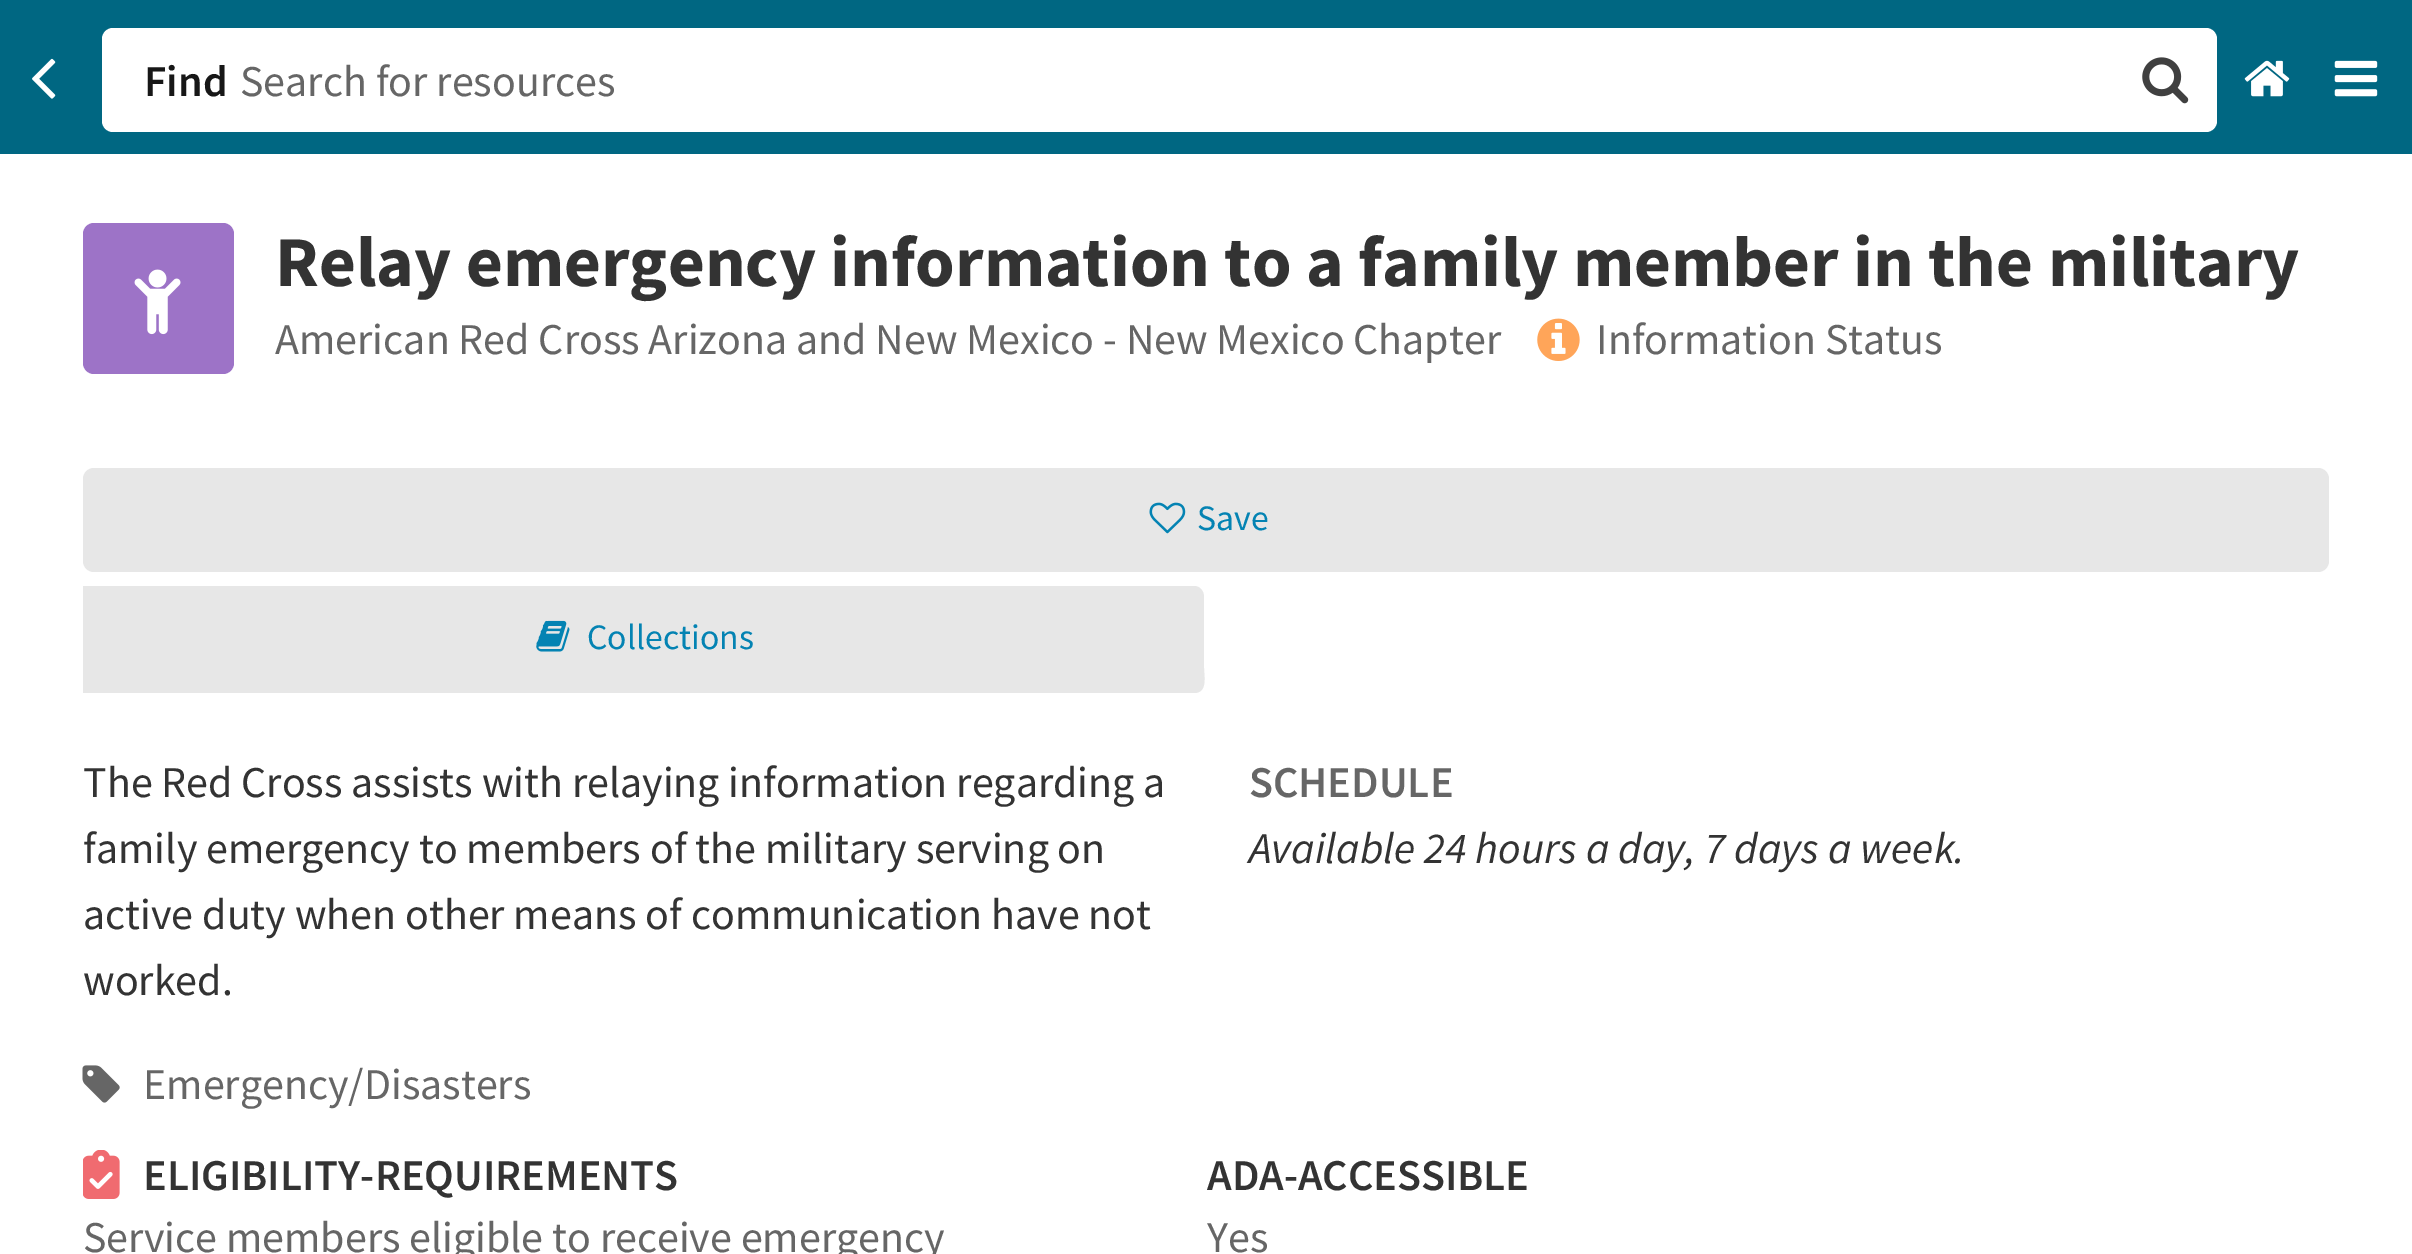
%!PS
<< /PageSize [2412 1254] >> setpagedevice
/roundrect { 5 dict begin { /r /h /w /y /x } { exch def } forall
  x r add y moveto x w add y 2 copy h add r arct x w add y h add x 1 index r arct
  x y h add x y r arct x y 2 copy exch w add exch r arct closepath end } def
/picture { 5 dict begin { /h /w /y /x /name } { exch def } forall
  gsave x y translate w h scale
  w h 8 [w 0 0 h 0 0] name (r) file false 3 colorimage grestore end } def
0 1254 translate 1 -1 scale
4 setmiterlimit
1 setgray
0 0 2412 1254 rectfill
0 0.404 0.51 setrgbcolor
0 0 2412 154 rectfill
(img1.rgb) 32 58 24 41 picture
1 setgray
102 28 2115 104 11 roundrect fill
/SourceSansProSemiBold-SemiBold [44 0 0 -44 0 0] selectfont
0.09 setgray
144 96 moveto (Find) show
/SourceSansPro-Regular [44 0 0 -44 0 0] selectfont
0.4 setgray
240 96 moveto (Search for resources) show
(img2.rgb) 2142 57 47 47 picture
(img3.rgb) 2244 60 46 37 picture
(img4.rgb) 2334 60 44 37 picture
0.616 0.451 0.78 setrgbcolor
83 223 151 151 11 roundrect fill
(img5.rgb) 134 269 47 66 picture
/SourceSansPro-Bold [71.5 0 0 -71.5 0 0] selectfont
0.2 setgray
275 286 moveto (Relay emergency information to a family member in the military) show
/SourceSansPro-Regular [44 0 0 -44 0 0] selectfont
0.4 setgray
275 354 moveto (American Red Cross Arizona and New Mexico - New Mexico Chapter) show
(img6.rgb) 1537 318 43 43 picture
1596 354 moveto (Information Status) show
0.906 setgray
83 468 2246 104 11 roundrect fill
(img7.rgb) 1149 502 37 32 picture
/SourceSansPro-Regular [35.75 0 0 -35.75 0 0] selectfont
0.016 0.514 0.702 setrgbcolor
1197 530 moveto (Save) show
0.906 setgray
newpath 83 586 moveto 83 693 lineto 1194 693 lineto 1208 693 1204 676 1204 668 curveto 1204 597 lineto 1204 591 1200 586 1194 586 curveto closepath fill
(img8.rgb) 536 620 34 32 picture
0.016 0.514 0.702 setrgbcolor
587 649 moveto (Collections) show
/SourceSansPro-Regular [44 0 0 -44 0 0] selectfont
0.2 setgray
83 797 moveto (The Red Cross assists with relaying information regarding a) show
83 863 moveto (family emergency to members of the military serving on) show
83 929 moveto (active duty when other means of communication have not) show
83 995 moveto (worked.) show
/SourceSansProSemiBold-SemiBold [44 0 0 -44 0 0] selectfont
0.4 setgray
1249 797 moveto (SCHEDULE) show
/SourceSansPro-Italic [44 0 0 -44 0 0] selectfont
0.2 setgray
1249 863 moveto (Available 24 hours a day, 7 days a week.) show
(img9.rgb) 82 1065 38 38 picture
/SourceSansPro-Regular [44 0 0 -44 0 0] selectfont
0.4 setgray
143 1099 moveto (Emergency/Disasters) show
(img10.rgb) 83 1150 37 49 picture
/SourceSansProSemiBold-SemiBold [44 0 0 -44 0 0] selectfont
0.2 setgray
143 1190 moveto (ELIGIBILITY-REQUIREMENTS) show
/SourceSansPro-Regular [44 0 0 -44 0 0] selectfont
0.4 setgray
83 1252 moveto (Service members eligible to receive emergency) show
/SourceSansProSemiBold-SemiBold [44 0 0 -44 0 0] selectfont
0.2 setgray
1207 1190 moveto (ADA-ACCESSIBLE) show
/SourceSansPro-Regular [44 0 0 -44 0 0] selectfont
0.4 setgray
1207 1252 moveto (Yes) show
showpage
